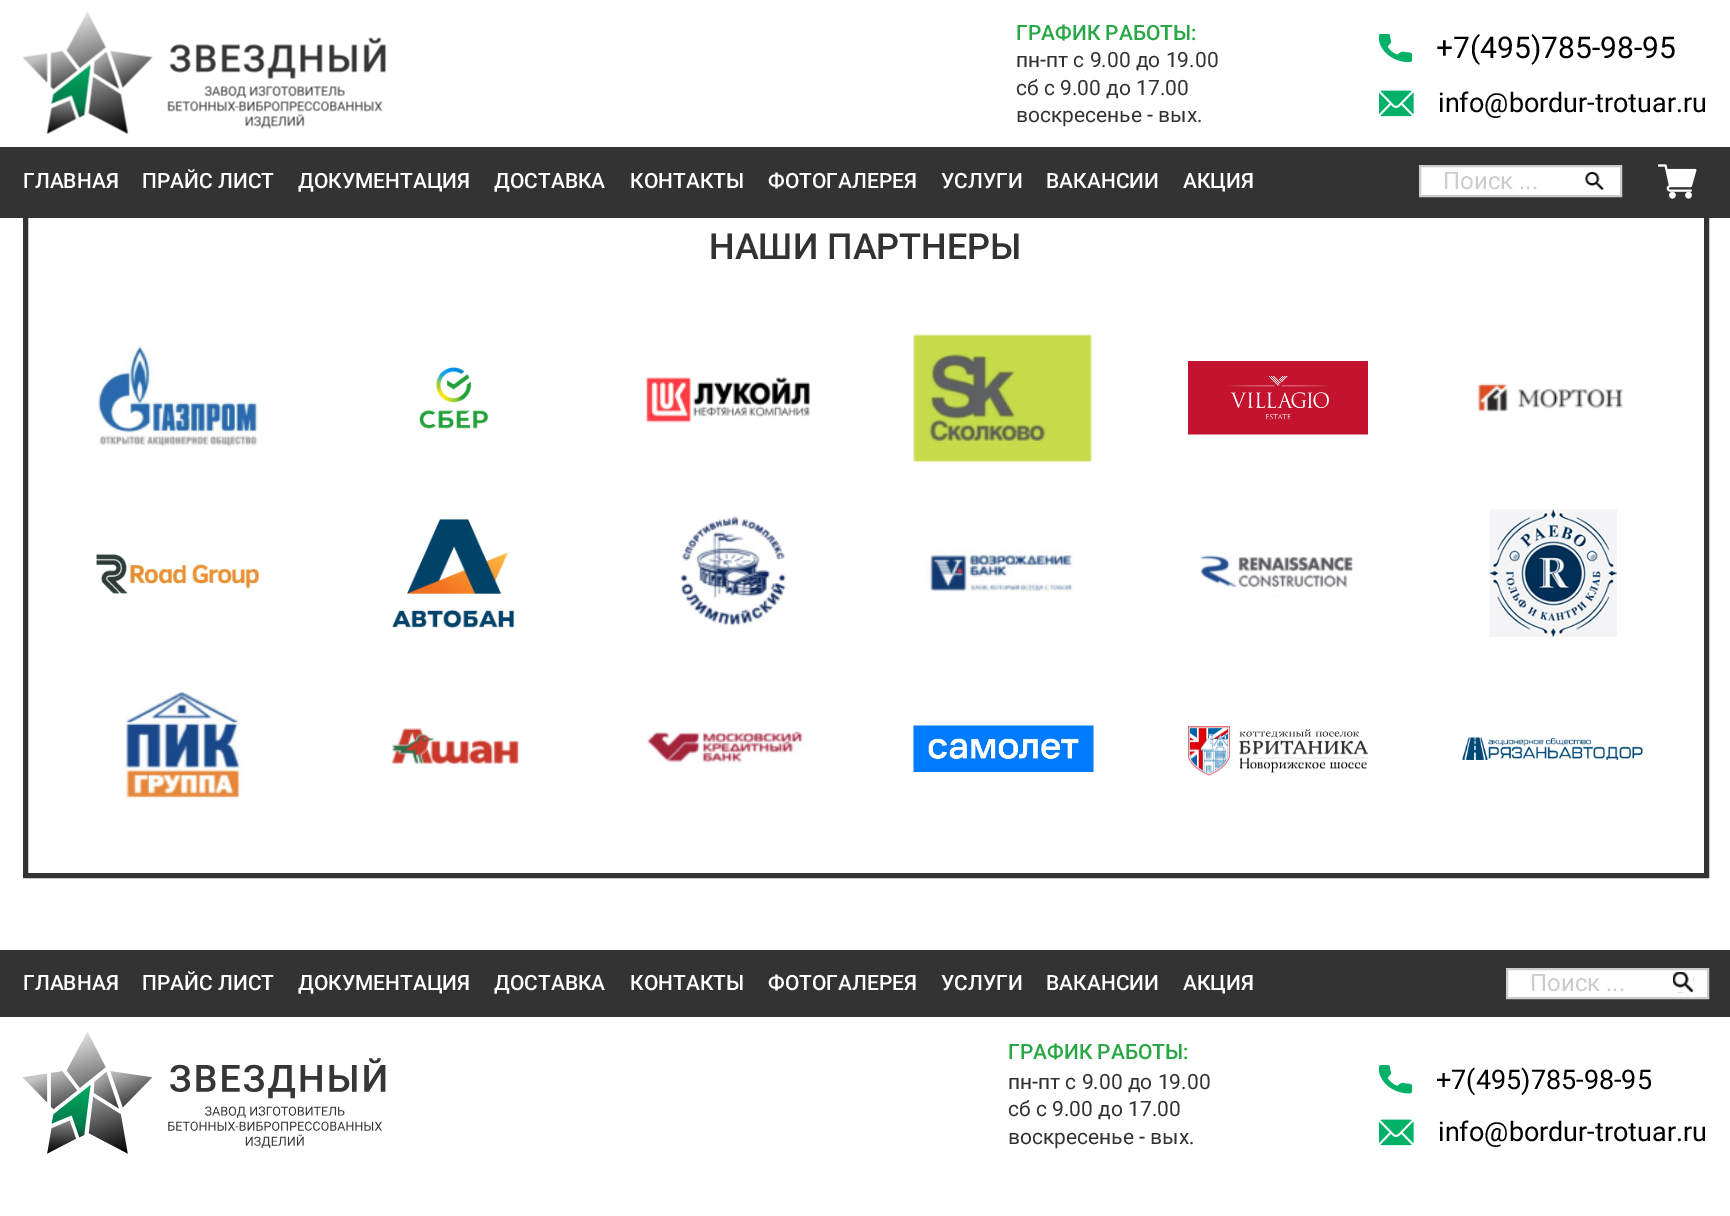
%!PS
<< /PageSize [1730 1216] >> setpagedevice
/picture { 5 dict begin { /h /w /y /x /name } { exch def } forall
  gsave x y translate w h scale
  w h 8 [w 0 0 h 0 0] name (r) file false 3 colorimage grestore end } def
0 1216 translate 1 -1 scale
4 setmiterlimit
1 setgray
0 0 1730 1216 rectfill
0.2 setgray
5 setlinewidth
25.5 182.5 1681 693 rectstroke
0 147 1730 71 rectfill
(img1.rgb) 22 11 364 123 picture
/Roboto-Medium [21 0 0 -21 0 0] selectfont
0.157 0.655 0.271 setrgbcolor
1016 40 moveto (ГРАФИК РАБОТЫ:) show
/Roboto-Regular [21 0 0 -21 0 0] selectfont
0.196 setgray
1016 67 moveto (пн-пт с 9.00 до 19.00) show
1016 95 moveto (сб с 9.00 до 17.00) show
1016 122 moveto (воскресенье - вых.) show
(img2.rgb) 1379 34 33 28 picture
/Roboto-Regular [30 0 0 -30 0 0] selectfont
0 setgray
1436 58 moveto (+7\(495\)785-98-95) show
(img3.rgb) 1379 90 35 27 picture
/Roboto-Regular [27 0 0 -27 0 0] selectfont
1438 112 moveto (info@bordur-trotuar.ru) show
/Roboto-Medium [21 0 0 -21 0 0] selectfont
1 setgray
23 188 moveto (ГЛАВНАЯ) show
142 188 moveto (ПРАЙС ЛИСТ) show
298 188 moveto (ДОКУМЕНТАЦИЯ) show
494 188 moveto (ДОСТАВКА) show
630 188 moveto (КОНТАКТЫ) show
768 188 moveto (ФОТОГАЛЕРЕЯ) show
941 188 moveto (УСЛУГИ) show
1046 188 moveto (ВАКАНСИИ) show
1183 188 moveto (АКЦИЯ) show
newpath 1420 166 moveto 1621 166 lineto 1621 196 lineto 1420 196 lineto closepath gsave fill grestore
0.8 setgray
2 setlinewidth
stroke
/Roboto-Regular [24 0 0 -24 0 0] selectfont
1443 189 moveto (Поиск ...) show
(img4.rgb) 1585 172 19 18 picture
(img5.rgb) 1658 164 39 35 picture
/Roboto-Medium [36 0 0 -36 0 0] selectfont
0.196 setgray
709 259 moveto (НАШИ ПАРТНЕРЫ) show
(img6.rgb) 96 345 162 102 picture
(img7.rgb) 419 367 69 62 picture
(img8.rgb) 646 377 164 46 picture
(img9.rgb) 913 334 179 128 picture
(img10.rgb) 1188 361 180 74 picture
(img11.rgb) 1477 383 147 29 picture
(img12.rgb) 96 554 164 40 picture
(img13.rgb) 392 518 123 110 picture
(img14.rgb) 680 516 106 110 picture
(img15.rgb) 926 549 149 43 picture
(img16.rgb) 1199 555 155 42 picture
(img17.rgb) 1489 509 128 128 picture
(img18.rgb) 126 691 120 108 picture
(img19.rgb) 391 728 129 37 picture
(img20.rgb) 646 731 160 33 picture
(img21.rgb) 913 725 181 47 picture
(img22.rgb) 1188 725 180 52 picture
(img23.rgb) 1462 737 181 23 picture
0.2 setgray
0 950 1730 67 rectfill
/Roboto-Medium [21 0 0 -21 0 0] selectfont
1 setgray
23 990 moveto (ГЛАВНАЯ) show
142 990 moveto (ПРАЙС ЛИСТ) show
298 990 moveto (ДОКУМЕНТАЦИЯ) show
494 990 moveto (ДОСТАВКА) show
630 990 moveto (КОНТАКТЫ) show
768 990 moveto (ФОТОГАЛЕРЕЯ) show
941 990 moveto (УСЛУГИ) show
1046 990 moveto (ВАКАНСИИ) show
1183 990 moveto (АКЦИЯ) show
newpath 1507 969 moveto 1708 969 lineto 1708 998 lineto 1507 998 lineto closepath gsave fill grestore
0.8 setgray
stroke
/Roboto-Regular [24 0 0 -24 0 0] selectfont
1530 991 moveto (Поиск ...) show
(img24.rgb) 1673 972 21 21 picture
(img25.rgb) 23 1032 363 122 picture
/Roboto-Medium [21 0 0 -21 0 0] selectfont
0.157 0.655 0.271 setrgbcolor
1008 1059 moveto (ГРАФИК РАБОТЫ:) show
/Roboto-Regular [21 0 0 -21 0 0] selectfont
0.196 setgray
1008 1089 moveto (пн-пт с 9.00 до 19.00) show
1008 1116 moveto (сб с 9.00 до 17.00) show
1008 1144 moveto (воскресенье - вых.) show
(img26.rgb) 1379 1065 33 29 picture
/Roboto-Regular [27 0 0 -27 0 0] selectfont
0 setgray
1436 1089 moveto (+7\(495\)785-98-95) show
(img3.rgb) 1379 1119 35 27 picture
1438 1141 moveto (info@bordur-trotuar.ru) show
showpage
